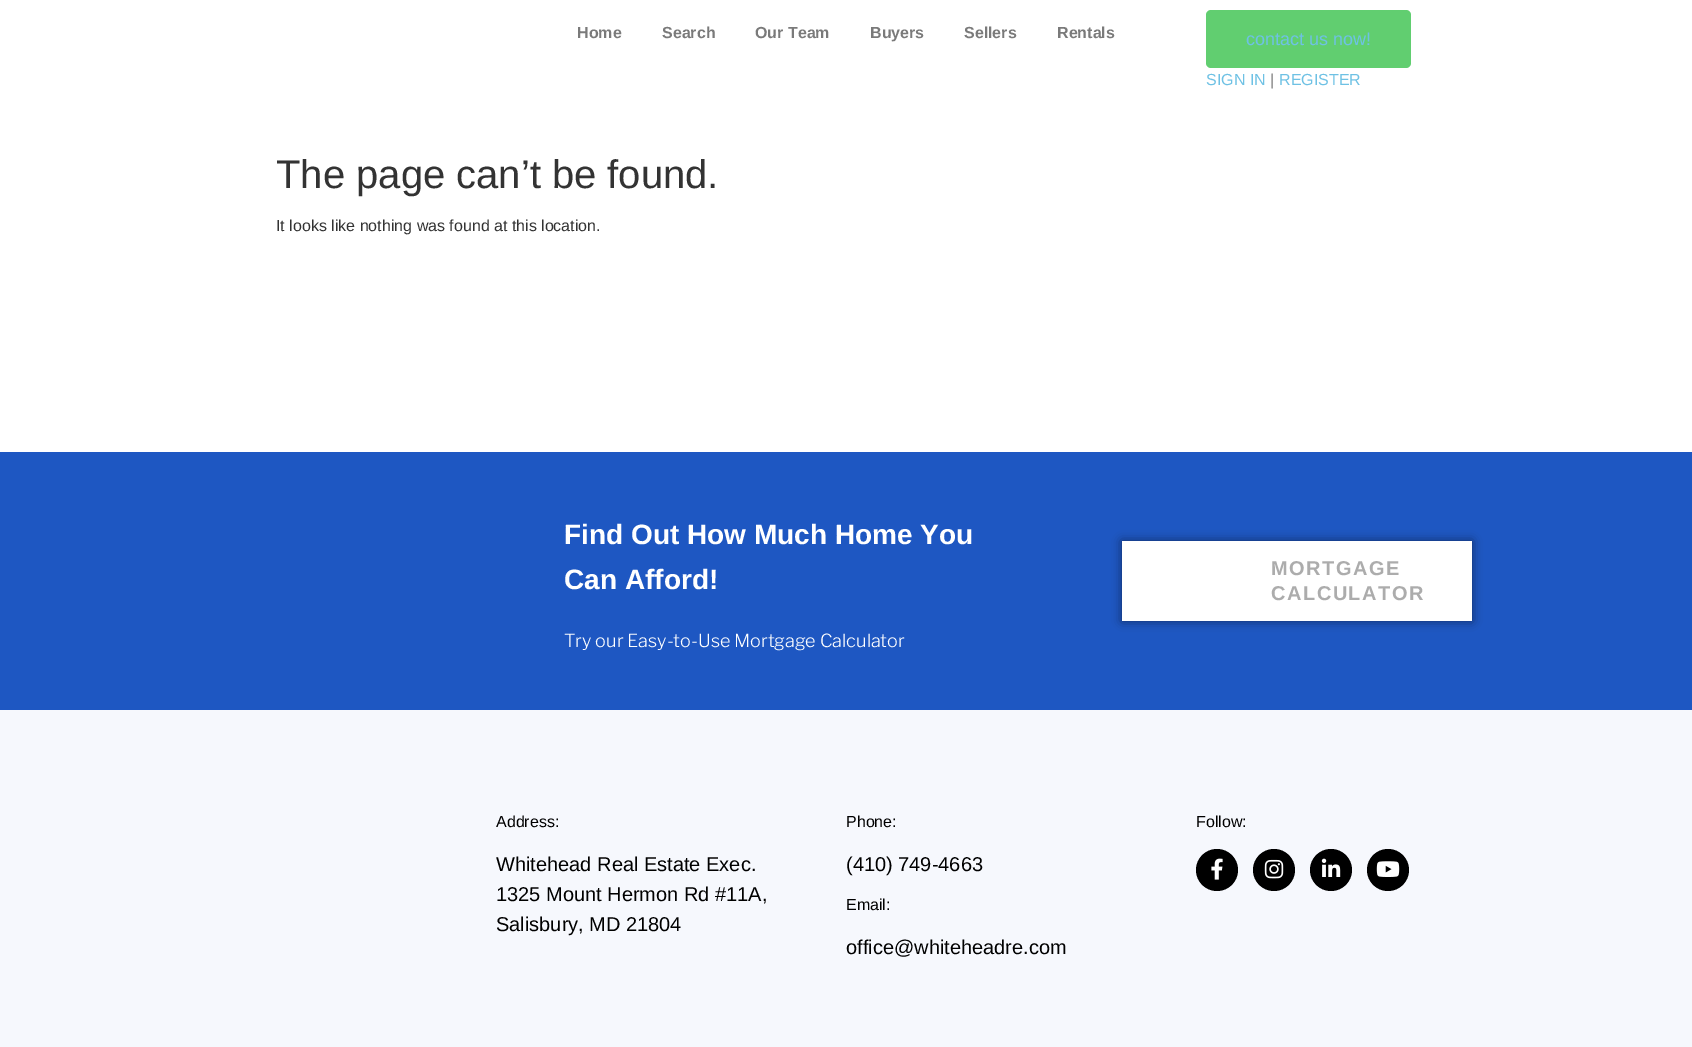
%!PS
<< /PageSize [1692 1047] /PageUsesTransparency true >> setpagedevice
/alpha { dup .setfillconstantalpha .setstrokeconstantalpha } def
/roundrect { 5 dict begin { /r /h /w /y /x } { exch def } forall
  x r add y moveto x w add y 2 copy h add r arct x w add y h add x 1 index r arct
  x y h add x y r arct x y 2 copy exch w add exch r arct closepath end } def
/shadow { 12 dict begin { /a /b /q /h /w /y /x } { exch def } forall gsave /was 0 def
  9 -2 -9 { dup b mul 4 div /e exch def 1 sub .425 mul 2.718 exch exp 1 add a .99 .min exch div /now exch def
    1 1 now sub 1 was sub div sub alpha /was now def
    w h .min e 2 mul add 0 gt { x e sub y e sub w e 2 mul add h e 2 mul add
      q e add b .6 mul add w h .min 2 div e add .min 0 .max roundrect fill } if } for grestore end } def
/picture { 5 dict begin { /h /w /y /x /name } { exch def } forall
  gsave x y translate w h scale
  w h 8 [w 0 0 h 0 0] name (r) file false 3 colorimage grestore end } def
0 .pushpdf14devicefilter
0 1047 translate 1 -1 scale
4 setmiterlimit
1 setgray
0 0 1692 1047 rectfill
/LiberationSans-Bold [16 0 0 -16 0 0] selectfont
0.478 setgray
577 38 moveto (Home) show
662 38 moveto (Search) show
755 38 moveto (Our Team) show
870 38 moveto (Buyers) show
964 38 moveto (Sellers) show
1057 38 moveto (Rentals) show
0.38 0.808 0.439 setrgbcolor
1206 10 205 58 5 roundrect fill
/LiberationSans-Regular [18 0 0 -18 0 0] selectfont
0.431 0.757 0.894 setrgbcolor
1246 45 moveto (contact us now!) show
/LiberationSans-Regular [16 0 0 -16 0 0] selectfont
1206 85 moveto (SIGN IN) show
0.478 setgray
1270 85 moveto (|) show
0.431 0.757 0.894 setrgbcolor
1279 85 moveto (REGISTER) show
/LiberationSans-Regular [40 0 0 -40 0 0] selectfont
0.2 setgray
276 188 moveto (The page can’t be found.) show
/LiberationSans-Regular [16 0 0 -16 0 0] selectfont
276 231 moveto (It looks like nothing was found at this location.) show
0.118 0.341 0.761 setrgbcolor
0 452 1692 258 rectfill
/LiberationSans-Bold [28 0 0 -28 0 0] selectfont
1 setgray
564 544 moveto (Find Out How Much Home You) show
564 589 moveto (Can Afford!) show
/LibreFranklin-Light [18 0 0 -18 0 0] selectfont
564 647 moveto (Try our Easy-to-Use Mortgage Calculator) show
0 setgray
1122 541 350 80 0 5 0.5 shadow
1 setgray
1122 541 350 80 rectfill
/LiberationSans-Bold [20 0 0 -20 0 0] selectfont
0.675 setgray
1271 575 moveto 1.5 0 (MORTGAGE) ashow
1271 600 moveto 1.5 0 (CALCULATOR) ashow
0.965 0.973 0.992 setrgbcolor
0 710 1692 337 rectfill
/LiberationSans-Regular [16 0 0 -16 0 0] selectfont
0 setgray
496 827 moveto (Address:) show
/LiberationSans-Regular [20 0 0 -20 0 0] selectfont
496 871 moveto (Whitehead Real Estate Exec.) show
496 901 moveto (1325 Mount Hermon Rd #11A,) show
496 931 moveto (Salisbury, MD 21804) show
/LiberationSans-Regular [16 0 0 -16 0 0] selectfont
846 827 moveto (Phone:) show
/LiberationSans-Regular [20 0 0 -20 0 0] selectfont
846 871 moveto (\(410\) 749-4663) show
/LiberationSans-Regular [16 0 0 -16 0 0] selectfont
846 910 moveto (Email:) show
/LiberationSans-Regular [20 0 0 -20 0 0] selectfont
846 954 moveto (office@whiteheadre.com) show
/LiberationSans-Regular [16 0 0 -16 0 0] selectfont
1196 827 moveto (Follow:) show
newpath 1217 870 21 0 360 arc closepath fill
(img1.rgb) 1211 858 12 22 picture
newpath 1274 870 21 0 360 arc closepath fill
(img2.rgb) 1264 859 20 20 picture
newpath 1331 870 21 0 360 arc closepath fill
(img3.rgb) 1321 858 20 19 picture
newpath 1388 870 21 0 360 arc closepath fill
(img4.rgb) 1376 861 24 16 picture
.poppdf14devicefilter showpage
